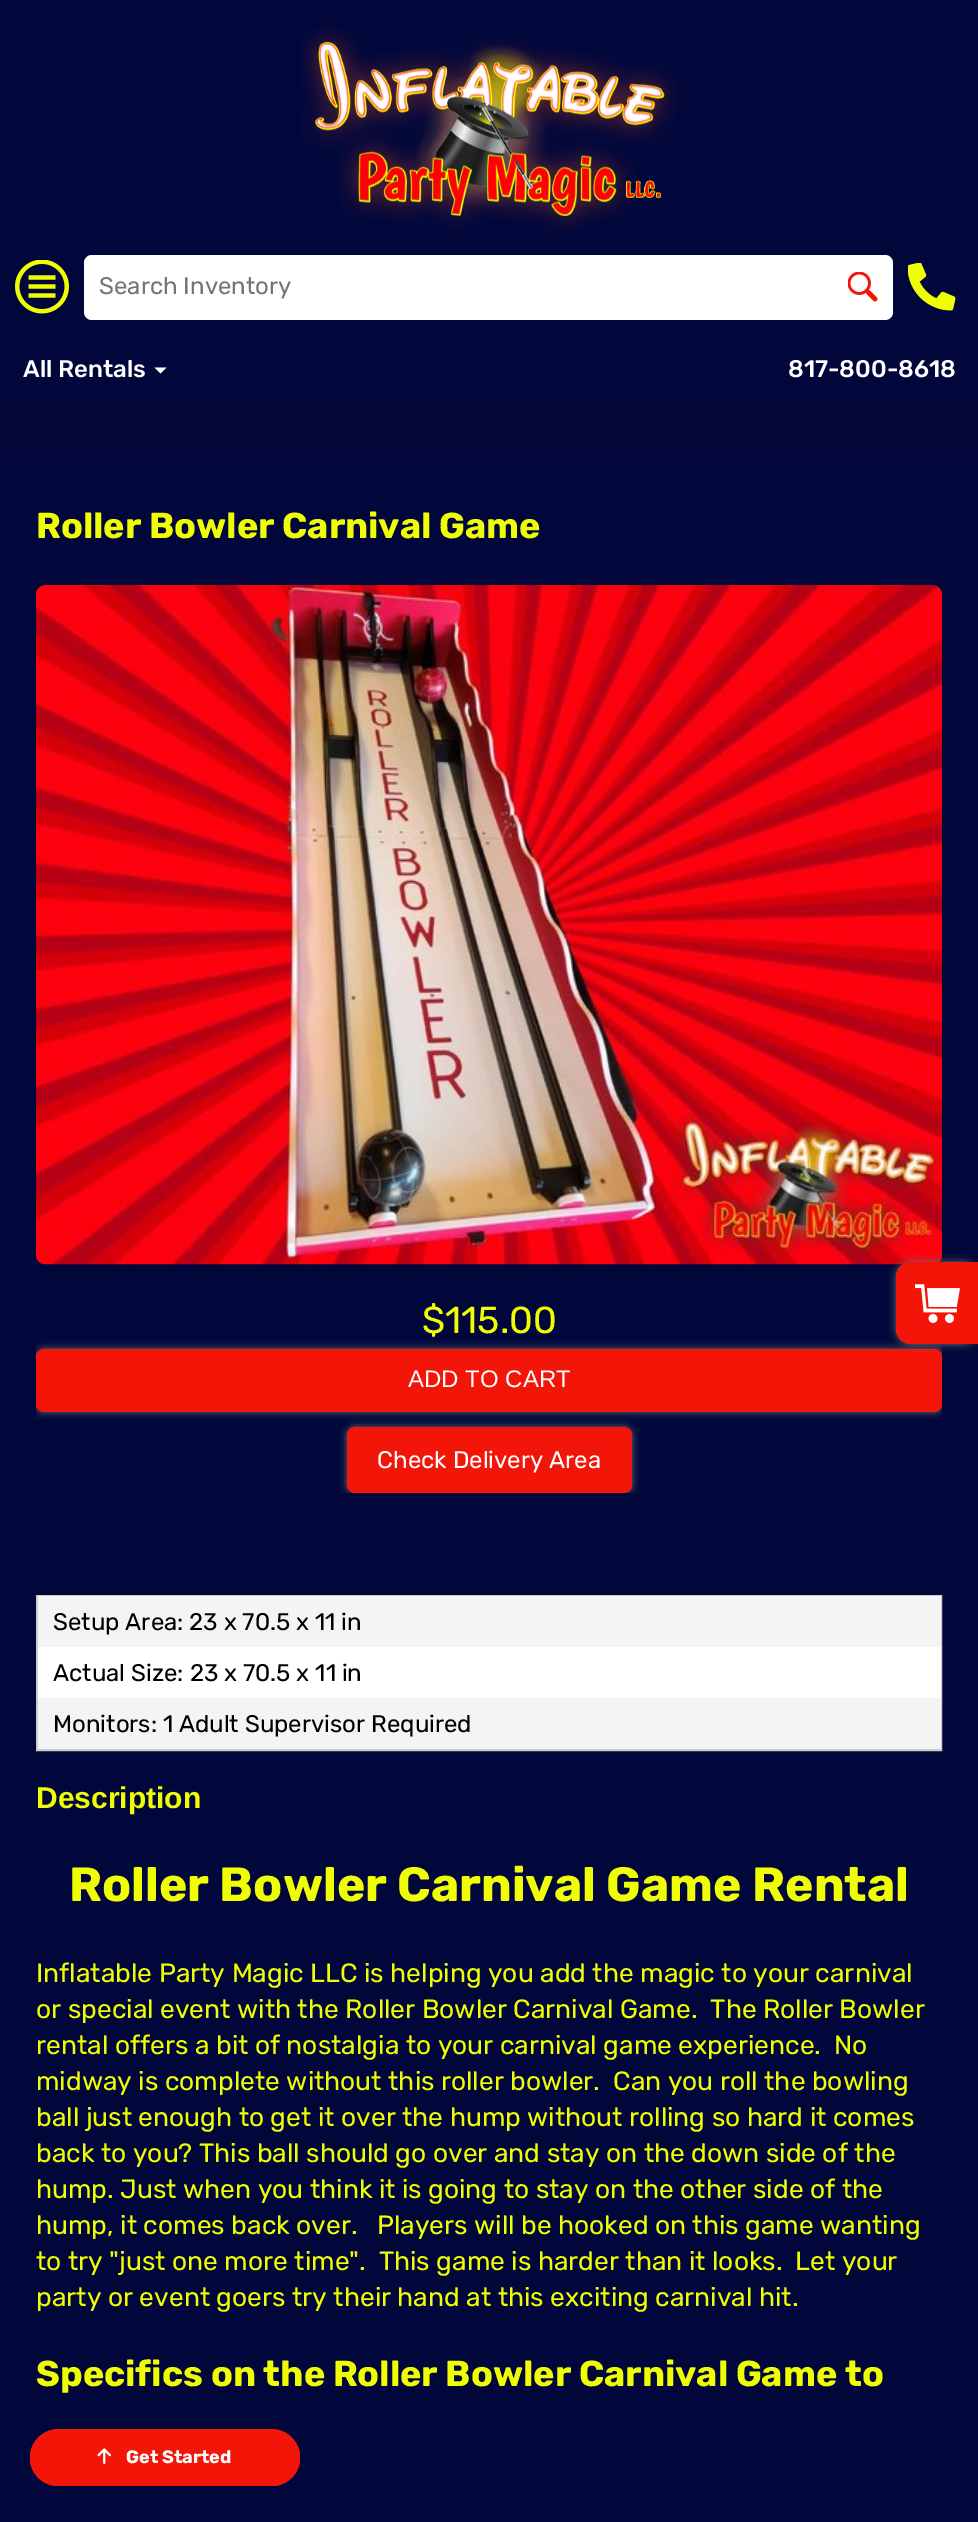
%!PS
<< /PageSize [978 2522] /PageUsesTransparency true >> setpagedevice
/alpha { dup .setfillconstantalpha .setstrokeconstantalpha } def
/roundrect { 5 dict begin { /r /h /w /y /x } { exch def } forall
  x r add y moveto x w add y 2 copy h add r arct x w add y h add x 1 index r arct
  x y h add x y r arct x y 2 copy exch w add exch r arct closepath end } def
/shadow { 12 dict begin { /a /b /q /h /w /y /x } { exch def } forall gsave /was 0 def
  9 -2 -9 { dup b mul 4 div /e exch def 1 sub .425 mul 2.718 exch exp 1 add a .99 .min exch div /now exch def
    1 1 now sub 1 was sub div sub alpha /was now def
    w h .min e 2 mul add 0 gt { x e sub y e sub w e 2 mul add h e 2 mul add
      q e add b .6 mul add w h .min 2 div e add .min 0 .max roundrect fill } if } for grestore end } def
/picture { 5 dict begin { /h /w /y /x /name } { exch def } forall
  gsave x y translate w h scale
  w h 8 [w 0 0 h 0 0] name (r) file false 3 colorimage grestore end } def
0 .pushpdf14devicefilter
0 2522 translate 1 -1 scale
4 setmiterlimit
1 setgray
0 0 978 2522 rectfill
gsave newpath 0 402 moveto 978 402 lineto 978 464 lineto 0 464 lineto closepath clip newpath
<< /ShadingType 2 /ColorSpace /DeviceRGB /Coords [489 330 489 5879] /Extend [true true] /Function << /FunctionType 2 /Domain [0 1] /C0 [0.004 0.027 0.231] /C1 [0.953 0.082 0.031] /N 1 >> >> shfill grestore
0.004 0.027 0.231 setrgbcolor
0 0 978 402 rectfill
(img1.rgb) 300 27 378 204 picture
(img2.rgb) 15 260 54 54 picture
1 setgray
84 255 809 65 8 roundrect fill
/Rubik-Regular [24 0 0 -24 0 0] selectfont
0.459 setgray
99 294 moveto (Search Inventory) show
(img3.rgb) 848 272 30 30 picture
(img4.rgb) 908 263 48 48 picture
/Rubik-Medium [24 0 0 -24 0 0] selectfont
1 setgray
23 377 moveto (All Rentals) show
newpath 154.5 367.5 moveto 166.5 367.5 lineto 160.5 373.5 lineto closepath fill
788 377 moveto (817-800-8618) show
0.004 0.027 0.231 setrgbcolor
0 455 978 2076 9 roundrect fill
/Rubik-Bold [36 0 0 -36 0 0] selectfont
0.941 0.996 0.008 setrgbcolor
36 538 moveto (Roller Bowler Carnival Game) show
(img5.rgb) 36 585 906 680 picture
/Rubik-Regular [37.5 0 0 -37.5 0 0] selectfont
422 1333 moveto ($115.00) show
gsave
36 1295 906 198 rectclip
0.439 setgray
36 1349 906 63 8 4 1 shadow
grestore
0.953 0.082 0.031 setrgbcolor
36 1349 906 63 8 roundrect fill
/LiberationSans-Regular [24 0 0 -24 0 0] selectfont
1 setgray
408 1387 moveto (ADD TO CART) show
gsave
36 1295 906 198 rectclip
0.439 setgray
347 1427 285 66 8 4 1 shadow
grestore
0.953 0.082 0.031 setrgbcolor
347 1427 285 66 8 roundrect fill
/Rubik-Regular [24 0 0 -24 0 0] selectfont
1 setgray
377 1468 moveto (Check Delivery Area) show
0.8 setgray
2 setlinewidth
37 1596 904 154 rectstroke
0.957 setgray
38 1596 903 51 rectfill
0 setgray
53 1630 moveto (Setup Area: 23 x 70.5 x 11 in) show
1 setgray
38 1647 903 51 rectfill
0 setgray
53 1681 moveto (Actual Size: 23 x 70.5 x 11 in) show
0.957 setgray
38 1698 903 51 rectfill
0 setgray
53 1732 moveto (Monitors: 1 Adult Supervisor Required) show
/LiberationSans-Bold [30 0 0 -30 0 0] selectfont
0.941 0.996 0.008 setrgbcolor
36 1808 moveto (Description) show
/Rubik-Bold [48 0 0 -48 0 0] selectfont
69 1901 moveto (Roller Bowler Carnival Game Rental) show
/Rubik-Regular [26.4 0 0 -26.4 0 0] selectfont
36 1982 moveto (Inflatable Party Magic LLC is helping you add the magic to your carnival) show
36 2018 moveto (or special event with the Roller Bowler Carnival Game.  The Roller Bowler) show
36 2054 moveto (rental offers a bit of nostalgia to your carnival game experience.  No) show
36 2090 moveto (midway is complete without this roller bowler.  Can you roll the bowling) show
36 2126 moveto (ball just enough to get it over the hump without rolling so hard it comes) show
36 2162 moveto (back to you? This ball should go over and stay on the down side of the) show
36 2198 moveto (hump. Just when you think it is going to stay on the other side of the) show
36 2234 moveto (hump, it comes back over.   Players will be hooked on this game wanting) show
36 2270 moveto (to try "just one more time".  This game is harder than it looks.  Let your) show
36 2306 moveto (party or event goers try their hand at this exciting carnival hit.) show
/Rubik-Bold [36 0 0 -36 0 0] selectfont
36 2386 moveto (Specifics on the Roller Bowler Carnival Game to) show
0.439 setgray
896 1262 82 82 15 4 1 shadow
0.953 0.082 0.031 setrgbcolor
newpath 911 1262 moveto 978 1262 lineto 978 1344 lineto 911 1344 lineto 902.5 1344 896 1337.5 896 1329 curveto 896 1277 lineto 896 1268.5 902.5 1262 911 1262 curveto closepath fill
(img6.rgb) 915 1284 45 39 picture
30 2429 270 57 28.5 roundrect fill
30 2430 270 56 28 roundrect fill
(img7.rgb) 97 2448 14 17 picture
/Rubik-Bold [18 0 0 -18 0 0] selectfont
1 setgray
126 2463 moveto (Get Started) show
.poppdf14devicefilter showpage
